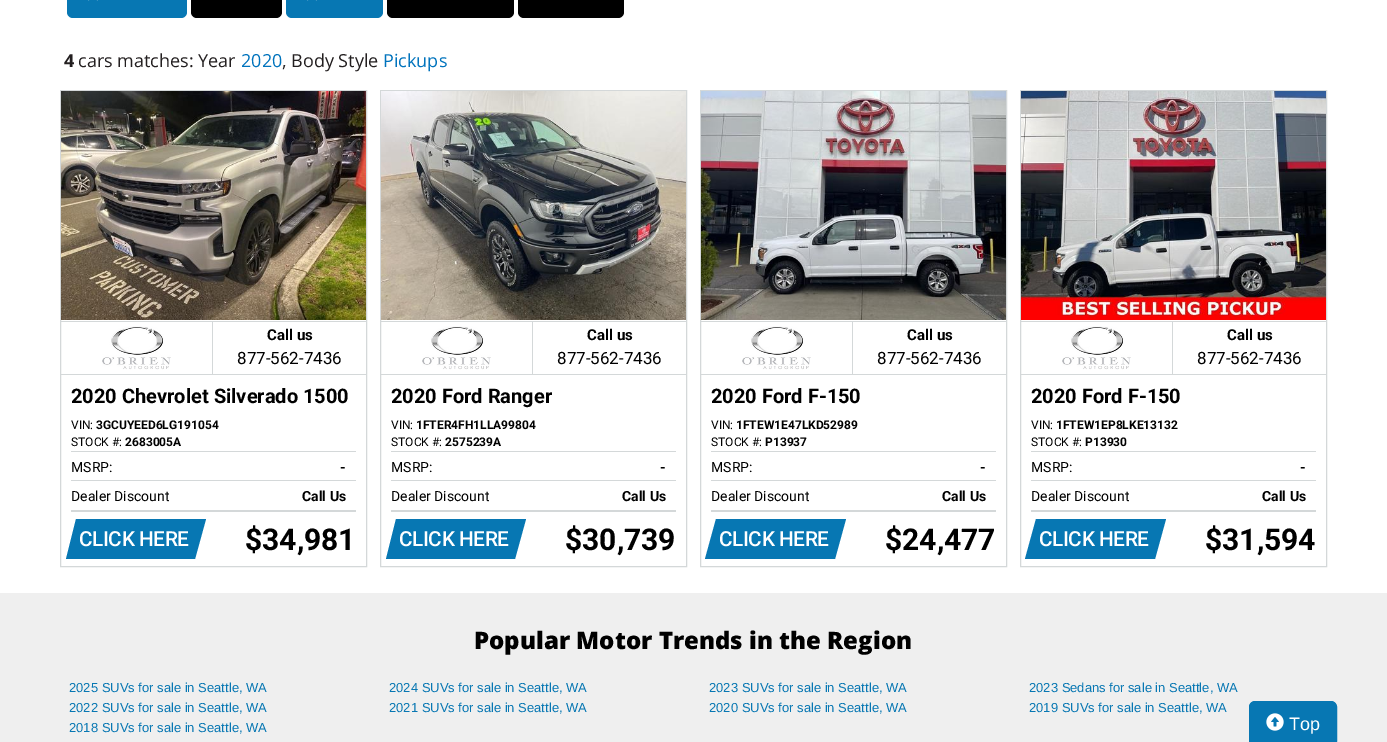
%!PS
<< /PageSize [1387 742] >> setpagedevice
/roundrect { 5 dict begin { /r /h /w /y /x } { exch def } forall
  x r add y moveto x w add y 2 copy h add r arct x w add y h add x 1 index r arct
  x y h add x y r arct x y 2 copy exch w add exch r arct closepath end } def
/picture { 5 dict begin { /h /w /y /x /name } { exch def } forall
  gsave x y translate w h scale
  w h 8 [w 0 0 h 0 0] name (r) file false 3 colorimage grestore end } def
0 742 translate 1 -1 scale
4 setmiterlimit
1 setgray
0 0 1387 742 rectfill
0.027 0.467 0.702 setrgbcolor
67 -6 120 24 6 roundrect fill
(img1.rgb) 88 0 10 1 picture
0 setgray
191 -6 91 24 6 roundrect fill
0.027 0.467 0.702 setrgbcolor
286 -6 97 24 6 roundrect fill
(img1.rgb) 307 0 10 1 picture
0 setgray
387 -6 127 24 6 roundrect fill
518 -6 106 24 6 roundrect fill
/OpenSans-Bold [18 0 0 -18 0 0] selectfont
0.137 0.122 0.125 setrgbcolor
64 67 moveto (4) show
/OpenSans-Regular [18 0 0 -18 0 0] selectfont
78 67 moveto (cars matches: Year) show
0 0.451 0.741 setrgbcolor
241 67 moveto (2020) show
0.137 0.122 0.125 setrgbcolor
282 67 moveto (, Body Style) show
0 0.451 0.741 setrgbcolor
383 67 moveto (Pickups) show
0.831 0.847 0.851 setrgbcolor
60.5 90.5 306 476 rectstroke
(img2.rgb) 61 91 305 229 picture
61 321 305 1 rectfill
212 321 1 54 rectfill
61 374 305 1 rectfill
(img3.rgb) 102 326 69 44 picture
/Roboto-Bold [15 0 0 -15 0 0] selectfont
0 setgray
267 340 moveto (Call us) show
/Roboto-Regular [17 0 0 -17 0 0] selectfont
237 364 moveto (877-562-7436) show
/Roboto-Bold [20 0 0 -20 0 0] selectfont
71 403 moveto (2020 Chevrolet Silverado 1500) show
/Roboto-Regular [12 0 0 -12 0 0] selectfont
71 429 moveto (VIN:) show
/Roboto-Bold [12 0 0 -12 0 0] selectfont
96 429 moveto (3GCUYEED6LG191054) show
/Roboto-Regular [12 0 0 -12 0 0] selectfont
71 446 moveto (STOCK #:) show
/Roboto-Bold [12 0 0 -12 0 0] selectfont
125 446 moveto (2683005A) show
0.831 0.847 0.851 setrgbcolor
71 451 285 1 rectfill
71 480 285 1 rectfill
/Roboto-Regular [14 0 0 -14 0 0] selectfont
0 setgray
71 472 moveto (MSRP:) show
/Roboto-Bold [14 0 0 -14 0 0] selectfont
340 472 moveto (-) show
0.831 0.847 0.851 setrgbcolor
71 510 285 2 rectfill
/Roboto-Regular [14 0 0 -14 0 0] selectfont
0 setgray
71 501 moveto (Dealer Discount) show
/Roboto-Bold [14 0 0 -14 0 0] selectfont
302 501 moveto (Call Us) show
0.027 0.467 0.702 setrgbcolor
newpath 76 519 moveto 206 519 lineto 195 559 lineto 66 559 lineto closepath fill
/Roboto-Medium [20.75 0 0 -20.75 0 0] selectfont
1 setgray
79 546 moveto -0.4 0 (CLICK HERE) ashow
/Roboto-Bold [30 0 0 -30 0 0] selectfont
0 setgray
245 550 moveto ($34,981) show
0.831 0.847 0.851 setrgbcolor
380.5 90.5 306 476 rectstroke
(img4.rgb) 381 91 305 229 picture
381 321 305 1 rectfill
532 321 1 54 rectfill
381 374 305 1 rectfill
(img3.rgb) 422 326 69 44 picture
/Roboto-Bold [15 0 0 -15 0 0] selectfont
0 setgray
587 340 moveto (Call us) show
/Roboto-Regular [17 0 0 -17 0 0] selectfont
557 364 moveto (877-562-7436) show
/Roboto-Bold [20 0 0 -20 0 0] selectfont
391 403 moveto (2020 Ford Ranger) show
/Roboto-Regular [12 0 0 -12 0 0] selectfont
391 429 moveto (VIN:) show
/Roboto-Bold [12 0 0 -12 0 0] selectfont
416 429 moveto (1FTER4FH1LLA99804) show
/Roboto-Regular [12 0 0 -12 0 0] selectfont
391 446 moveto (STOCK #:) show
/Roboto-Bold [12 0 0 -12 0 0] selectfont
445 446 moveto (2575239A) show
0.831 0.847 0.851 setrgbcolor
391 451 285 1 rectfill
391 480 285 1 rectfill
/Roboto-Regular [14 0 0 -14 0 0] selectfont
0 setgray
391 472 moveto (MSRP:) show
/Roboto-Bold [14 0 0 -14 0 0] selectfont
660 472 moveto (-) show
0.831 0.847 0.851 setrgbcolor
391 510 285 2 rectfill
/Roboto-Regular [14 0 0 -14 0 0] selectfont
0 setgray
391 501 moveto (Dealer Discount) show
/Roboto-Bold [14 0 0 -14 0 0] selectfont
622 501 moveto (Call Us) show
0.027 0.467 0.702 setrgbcolor
newpath 396 519 moveto 526 519 lineto 515 559 lineto 386 559 lineto closepath fill
/Roboto-Medium [20.75 0 0 -20.75 0 0] selectfont
1 setgray
399 546 moveto -0.4 0 (CLICK HERE) ashow
/Roboto-Bold [30 0 0 -30 0 0] selectfont
0 setgray
565 550 moveto ($30,739) show
0.831 0.847 0.851 setrgbcolor
700.5 90.5 306 476 rectstroke
(img5.rgb) 701 91 305 229 picture
701 321 305 1 rectfill
852 321 1 54 rectfill
701 374 305 1 rectfill
(img3.rgb) 742 326 69 44 picture
/Roboto-Bold [15 0 0 -15 0 0] selectfont
0 setgray
907 340 moveto (Call us) show
/Roboto-Regular [17 0 0 -17 0 0] selectfont
877 364 moveto (877-562-7436) show
/Roboto-Bold [20 0 0 -20 0 0] selectfont
711 403 moveto (2020 Ford F-150) show
/Roboto-Regular [12 0 0 -12 0 0] selectfont
711 429 moveto (VIN:) show
/Roboto-Bold [12 0 0 -12 0 0] selectfont
736 429 moveto (1FTEW1E47LKD52989) show
/Roboto-Regular [12 0 0 -12 0 0] selectfont
711 446 moveto (STOCK #:) show
/Roboto-Bold [12 0 0 -12 0 0] selectfont
765 446 moveto (P13937) show
0.831 0.847 0.851 setrgbcolor
711 451 285 1 rectfill
711 480 285 1 rectfill
/Roboto-Regular [14 0 0 -14 0 0] selectfont
0 setgray
711 472 moveto (MSRP:) show
/Roboto-Bold [14 0 0 -14 0 0] selectfont
980 472 moveto (-) show
0.831 0.847 0.851 setrgbcolor
711 510 285 2 rectfill
/Roboto-Regular [14 0 0 -14 0 0] selectfont
0 setgray
711 501 moveto (Dealer Discount) show
/Roboto-Bold [14 0 0 -14 0 0] selectfont
942 501 moveto (Call Us) show
0.027 0.467 0.702 setrgbcolor
newpath 716 519 moveto 846 519 lineto 835 559 lineto 705 559 lineto closepath fill
/Roboto-Medium [20.75 0 0 -20.75 0 0] selectfont
1 setgray
719 546 moveto -0.4 0 (CLICK HERE) ashow
/Roboto-Bold [30 0 0 -30 0 0] selectfont
0 setgray
885 550 moveto ($24,477) show
0.831 0.847 0.851 setrgbcolor
1020.5 90.5 306 476 rectstroke
(img6.rgb) 1021 91 305 229 picture
1021 321 305 1 rectfill
1172 321 1 54 rectfill
1021 374 305 1 rectfill
(img3.rgb) 1062 326 69 44 picture
/Roboto-Bold [15 0 0 -15 0 0] selectfont
0 setgray
1227 340 moveto (Call us) show
/Roboto-Regular [17 0 0 -17 0 0] selectfont
1197 364 moveto (877-562-7436) show
/Roboto-Bold [20 0 0 -20 0 0] selectfont
1031 403 moveto (2020 Ford F-150) show
/Roboto-Regular [12 0 0 -12 0 0] selectfont
1031 429 moveto (VIN:) show
/Roboto-Bold [12 0 0 -12 0 0] selectfont
1056 429 moveto (1FTEW1EP8LKE13132) show
/Roboto-Regular [12 0 0 -12 0 0] selectfont
1031 446 moveto (STOCK #:) show
/Roboto-Bold [12 0 0 -12 0 0] selectfont
1085 446 moveto (P13930) show
0.831 0.847 0.851 setrgbcolor
1031 451 285 1 rectfill
1031 480 285 1 rectfill
/Roboto-Regular [14 0 0 -14 0 0] selectfont
0 setgray
1031 472 moveto (MSRP:) show
/Roboto-Bold [14 0 0 -14 0 0] selectfont
1300 472 moveto (-) show
0.831 0.847 0.851 setrgbcolor
1031 510 285 2 rectfill
/Roboto-Regular [14 0 0 -14 0 0] selectfont
0 setgray
1031 501 moveto (Dealer Discount) show
/Roboto-Bold [14 0 0 -14 0 0] selectfont
1262 501 moveto (Call Us) show
0.027 0.467 0.702 setrgbcolor
newpath 1036 519 moveto 1166 519 lineto 1155 559 lineto 1025 559 lineto closepath fill
/Roboto-Medium [20.75 0 0 -20.75 0 0] selectfont
1 setgray
1039 546 moveto -0.4 0 (CLICK HERE) ashow
/Roboto-Bold [30 0 0 -30 0 0] selectfont
0 setgray
1205 550 moveto ($31,594) show
0.937 setgray
0 593 1387 149 rectfill
0.027 0.467 0.702 setrgbcolor
1249.5 701.5 87 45 5.5 roundrect gsave fill grestore
stroke
(img7.rgb) 1266 713 18 18 picture
/LiberationSans-Regular [18 0 0 -18 0 0] selectfont
1 setgray
1289 730 moveto (Top) show
/OpenSans-ExtraBold [24 0 0 -24 0 0] selectfont
0 setgray
474 649 moveto (Popular Motor Trends in the Region) show
/LiberationSans-Regular [13 0 0 -13 0 0] selectfont
0.027 0.467 0.702 setrgbcolor
69 692 moveto (2025 SUVs for sale in Seattle, WA) show
389 692 moveto (2024 SUVs for sale in Seattle, WA) show
709 692 moveto (2023 SUVs for sale in Seattle, WA) show
1029 692 moveto (2023 Sedans for sale in Seattle, WA) show
69 712 moveto (2022 SUVs for sale in Seattle, WA) show
389 712 moveto (2021 SUVs for sale in Seattle, WA) show
709 712 moveto (2020 SUVs for sale in Seattle, WA) show
1029 712 moveto (2019 SUVs for sale in Seattle, WA) show
69 732 moveto (2018 SUVs for sale in Seattle, WA) show
showpage
